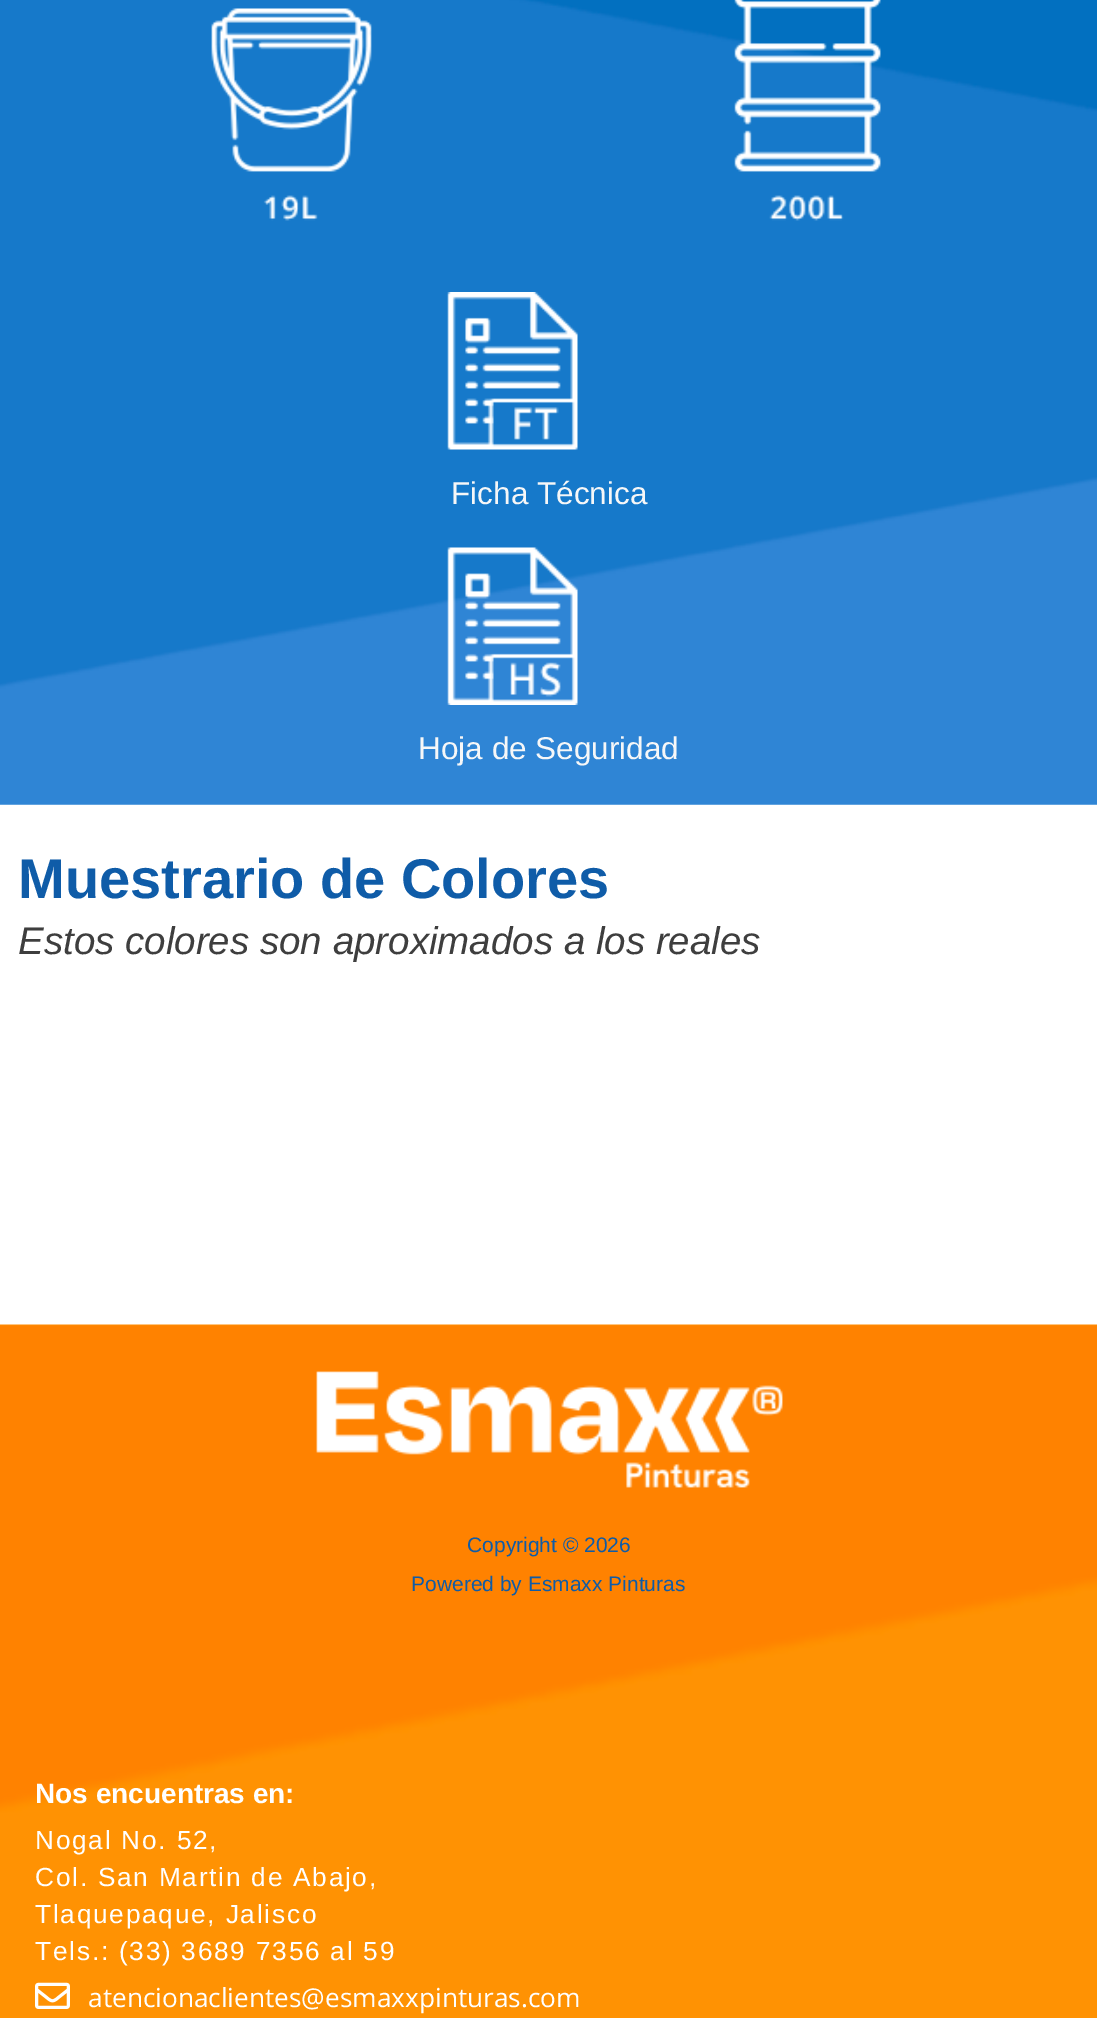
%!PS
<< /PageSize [1097 2018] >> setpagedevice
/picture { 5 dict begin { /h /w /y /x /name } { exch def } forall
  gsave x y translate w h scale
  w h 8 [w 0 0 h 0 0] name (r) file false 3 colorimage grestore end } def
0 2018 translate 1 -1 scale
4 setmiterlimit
1 setgray
0 0 1097 2018 rectfill
(img1.rgb) 0 804 1097 1 picture
(img2.rgb) 0 0 1097 805 picture
(img3.rgb) 211 0 670 221 picture
(img4.rgb) 447 292 131 158 picture
/LiberationSans-Regular [31.5 0 0 -31.5 0 0] selectfont
0.965 0.969 0.973 setrgbcolor
451 504 moveto (Ficha Técnica) show
(img5.rgb) 447 547 131 158 picture
418 759 moveto (Hoja de Seguridad) show
/LiberationSans-Bold [56 0 0 -56 0 0] selectfont
0.059 0.361 0.659 setrgbcolor
18 898 moveto (Muestrario de Colores) show
/LiberationSans-Italic [38.5 0 0 -38.5 0 0] selectfont
0.243 setgray
18 954 moveto (Estos colores son aproximados a los reales) show
(img6.rgb) 0 1324 1097 694 picture
(img7.rgb) 316 1371 467 117 picture
/LiberationSans-Regular [21 0 0 -21 0 0] selectfont
0.059 0.361 0.659 setrgbcolor
467 1552 moveto (Copyright © 2026) show
411 1591 moveto (Powered by Esmaxx Pinturas) show
/LiberationSans-Bold [28 0 0 -28 0 0] selectfont
1 setgray
35 1803 moveto (Nos encuentras en:) show
/LiberationSans-Regular [26.25 0 0 -26.25 0 0] selectfont
35 1849 moveto 1.75 0 (Nogal No. 52,) ashow
35 1886 moveto 1.75 0 (Col. San Martin de Abajo,) ashow
35 1923 moveto 1.75 0 (Tlaquepaque, Jalisco) ashow
35 1960 moveto 1.75 0 (Tels.: \(33\) 3689 7356 al 59) ashow
(img8.rgb) 35 1982 35 27 picture
/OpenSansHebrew-Regular [26.25 0 0 -26.25 0 0] selectfont
88 2007 moveto (atencionaclientes@esmaxxpinturas.com) show
showpage
